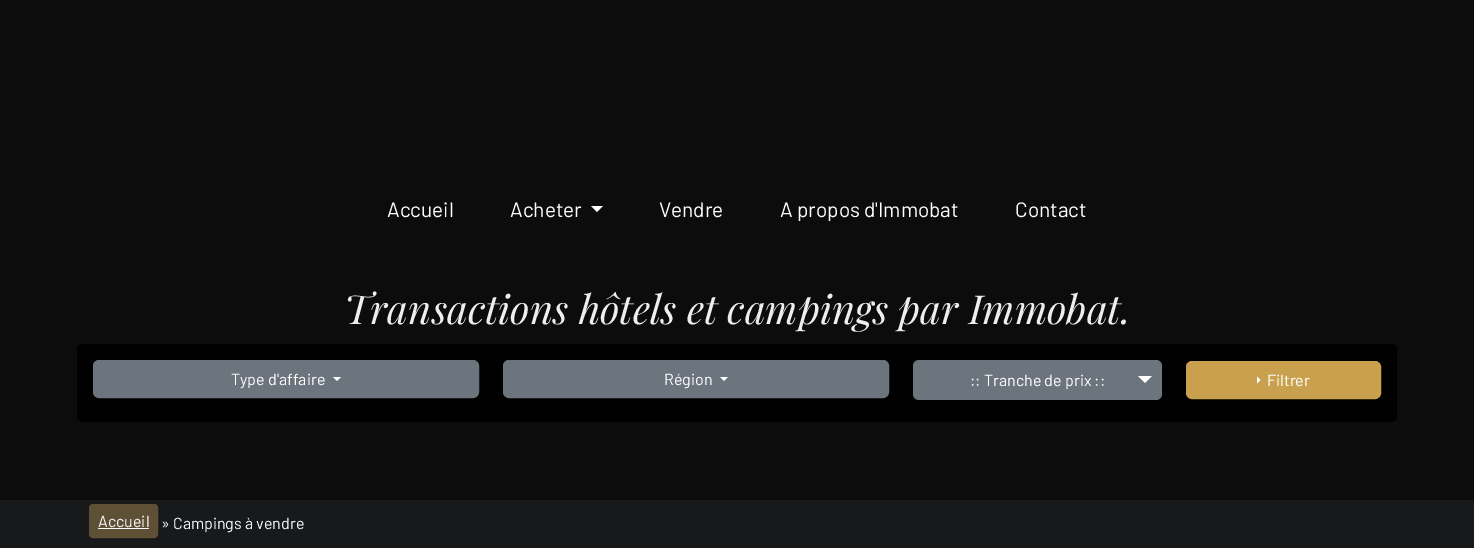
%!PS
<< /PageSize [1474 548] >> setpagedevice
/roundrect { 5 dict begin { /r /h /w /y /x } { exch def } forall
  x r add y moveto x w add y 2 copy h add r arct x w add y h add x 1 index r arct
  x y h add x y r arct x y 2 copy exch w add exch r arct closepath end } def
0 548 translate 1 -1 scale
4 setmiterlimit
0.094 0.098 0.102 setrgbcolor
0 0 1474 548 rectfill
0.047 0.047 0.051 setrgbcolor
0 0 1474 500 rectfill
/Barlow-Regular [20.75 0 0 -20.75 0 0] selectfont
1 setgray
387 217 moveto (Accueil) show
510 217 moveto (Acheter) show
newpath 591 206 moveto 603 206 lineto 597 212 lineto closepath fill
659 217 moveto (Vendre) show
780 217 moveto (A propos d'Immobat) show
1015 217 moveto (Contact) show
/PlayfairDisplay-Italic [40 0 0 -40 0 0] selectfont
0.933 setgray
344 324 moveto (Transactions hôtels et campings par Immobat.) show
0 setgray
77 344 1320 78 6 roundrect fill
0.424 0.459 0.49 setrgbcolor
93.5 360.5 385 37 5.5 roundrect gsave fill grestore
stroke
/Barlow-Regular [16 0 0 -16 0 0] selectfont
1 setgray
231 385 moveto (Type d'affaire) show
newpath 333 377 moveto 341 377 lineto 337 381 lineto closepath fill
0.424 0.459 0.49 setrgbcolor
503.5 360.5 385 37 5.5 roundrect gsave fill grestore
stroke
1 setgray
664 385 moveto (Région) show
newpath 720 377 moveto 728 377 lineto 724 381 lineto closepath fill
0.424 0.459 0.49 setrgbcolor
913 360 249 40 6 roundrect fill
1 setgray
970 386 moveto (:: Tranche de prix ::) show
newpath 1138 376 moveto 1152 376 lineto 1145 383 lineto closepath fill
0.788 0.627 0.306 setrgbcolor
1186.5 361.5 194 37 5.5 roundrect gsave fill grestore
stroke
1 setgray
newpath 1257 383.5 moveto 1257 376.5 lineto 1260.5 380 lineto closepath fill
1267 386 moveto (Filtrer) show
0.369 0.314 0.208 setrgbcolor
89.5 504.5 68 33 3.5 roundrect gsave fill grestore
stroke
0.973 0.976 0.98 setrgbcolor
98 527 moveto (Accueil) show
98 528 51 1 rectfill
161 529 moveto (» Campings à vendre) show
showpage
